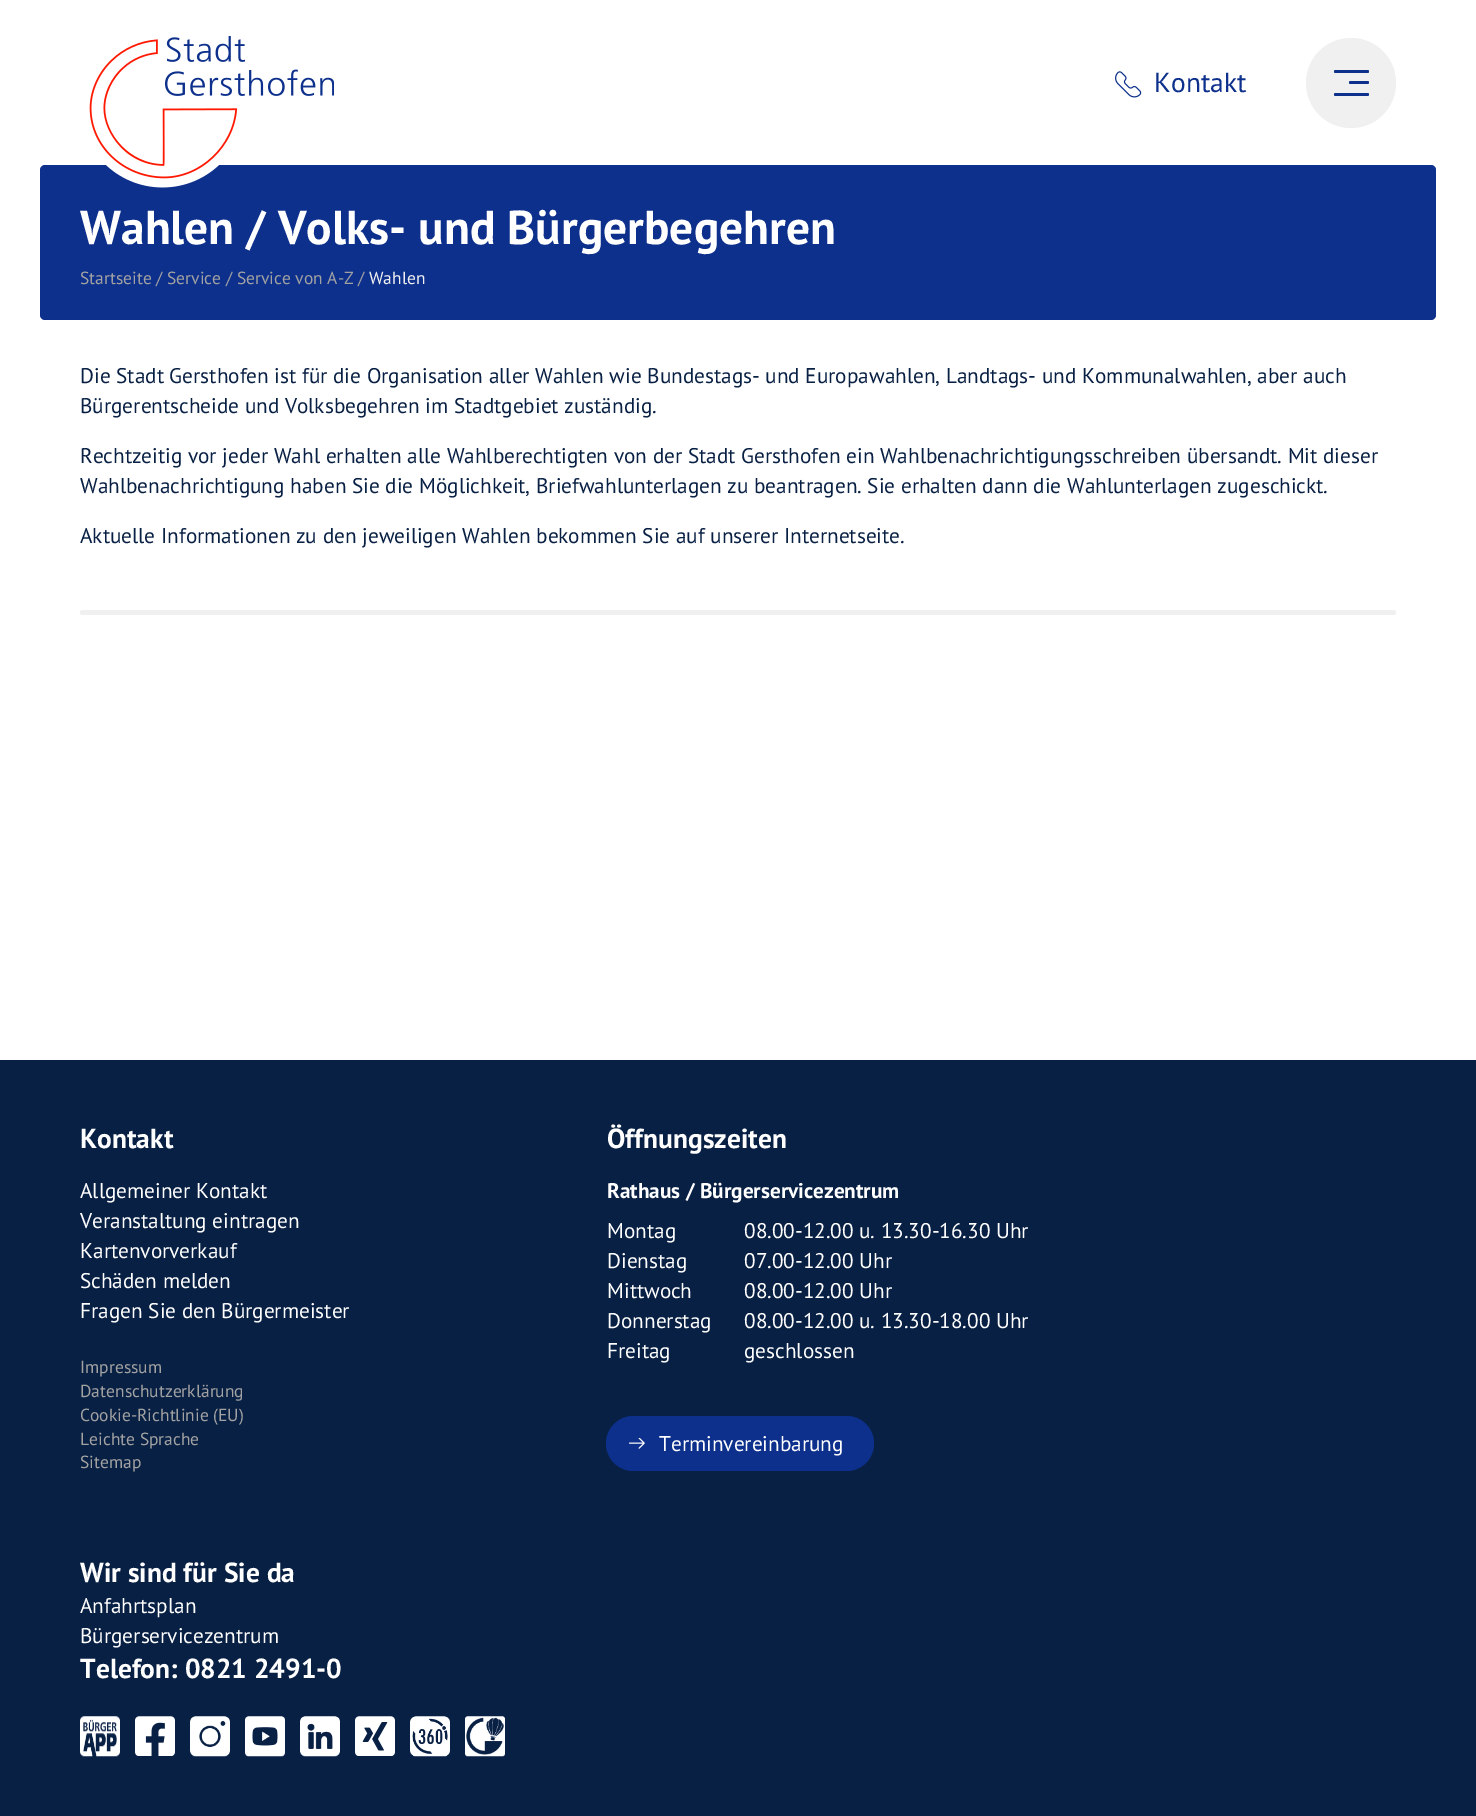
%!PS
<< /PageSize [1476 1816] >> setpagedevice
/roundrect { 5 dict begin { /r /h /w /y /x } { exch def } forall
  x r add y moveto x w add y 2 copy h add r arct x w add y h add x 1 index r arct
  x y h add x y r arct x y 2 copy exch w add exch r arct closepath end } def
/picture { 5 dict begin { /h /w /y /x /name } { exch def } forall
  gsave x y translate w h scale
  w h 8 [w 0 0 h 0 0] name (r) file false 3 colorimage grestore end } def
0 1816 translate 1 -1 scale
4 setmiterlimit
1 setgray
0 0 1476 1816 rectfill
0.051 0.188 0.549 setrgbcolor
40 165 1396 155 5 roundrect fill
(img1.rgb) 89 36 245 152 picture
(img2.rgb) 1115 71 27 27 picture
/PTSans-Regular [27.5 0 0 -27.5 0 0] selectfont
1154 92 moveto (Kontakt) show
0.941 setgray
newpath 1351 83 45 0 360 arc closepath fill
0.051 0.188 0.549 setrgbcolor
1349 81 20 3 1.5 roundrect fill
1334 70 35 3 1.5 roundrect fill
1334 93 35 3 1.5 roundrect fill
/PTSans-Bold [47.5 0 0 -47.5 0 0] selectfont
1 setgray
80 244 moveto (Wahlen / Volks- und Bürgerbegehren) show
/PTSans-Regular [17.5 0 0 -17.5 0 0] selectfont
0.635 setgray
80 284 moveto (Startseite / Service / Service von A-Z /) show
0.941 setgray
369 284 moveto (Wahlen) show
/PTSans-Regular [21.25 0 0 -21.25 0 0] selectfont
0.035 0.125 0.271 setrgbcolor
80 383 moveto (Die Stadt Gersthofen ist für die Organisation aller Wahlen wie Bundestags- und Europawahlen, Landtags- und Kommunalwahlen, aber auch) show
80 413 moveto (Bürgerentscheide und Volksbegehren im Stadtgebiet zuständig.) show
80 463 moveto (Rechtzeitig vor jeder Wahl erhalten alle Wahlberechtigten von der Stadt Gersthofen ein Wahlbenachrichtigungsschreiben übersandt. Mit dieser) show
80 493 moveto (Wahlbenachrichtigung haben Sie die Möglichkeit, Briefwahlunterlagen zu beantragen. Sie erhalten dann die Wahlunterlagen zugeschickt.) show
80 543 moveto (Aktuelle Informationen zu den jeweiligen Wahlen bekommen Sie auf unserer Internetseite.) show
0.941 setgray
80 610 1316 5 2.5 roundrect fill
0.035 0.125 0.271 setrgbcolor
0 1060 1476 756 rectfill
/PTSans-Bold [27.5 0 0 -27.5 0 0] selectfont
1 setgray
80 1148 moveto (Kontakt) show
/PTSans-Regular [21.25 0 0 -21.25 0 0] selectfont
80 1198 moveto (Allgemeiner Kontakt) show
80 1228 moveto (Veranstaltung eintragen) show
80 1258 moveto (Kartenvorverkauf) show
80 1288 moveto (Schäden melden) show
80 1318 moveto (Fragen Sie den Bürgermeister) show
/PTSans-Regular [17.5 0 0 -17.5 0 0] selectfont
0.635 setgray
80 1373 moveto (Impressum) show
80 1397 moveto (Datenschutzerklärung) show
80 1421 moveto (Cookie-Richtlinie \(EU\)) show
80 1445 moveto (Leichte Sprache) show
80 1468 moveto (Sitemap) show
/PTSans-Bold [27.5 0 0 -27.5 0 0] selectfont
1 setgray
607 1148 moveto (Öffnungszeiten) show
/PTSans-Bold [21.25 0 0 -21.25 0 0] selectfont
607 1198 moveto (Rathaus / Bürgerservicezentrum) show
/PTSans-Regular [21.25 0 0 -21.25 0 0] selectfont
607 1238 moveto (Montag) show
744 1238 moveto (08.00-12.00 u. 13.30-16.30 Uhr) show
607 1268 moveto (Dienstag) show
744 1268 moveto (07.00-12.00 Uhr) show
607 1298 moveto (Mittwoch) show
744 1298 moveto (08.00-12.00 Uhr) show
607 1328 moveto (Donnerstag) show
744 1328 moveto (08.00-12.00 u. 13.30-18.00 Uhr) show
607 1358 moveto (Freitag) show
744 1358 moveto (geschlossen) show
0.051 0.188 0.549 setrgbcolor
606 1416 268 55 27.5 roundrect fill
(img3.rgb) 629 1438 16 11 picture
1 setgray
659 1451 moveto (Terminvereinbarung) show
/PTSans-Bold [27.5 0 0 -27.5 0 0] selectfont
80 1582 moveto (Wir sind für Sie da) show
/PTSans-Regular [21.25 0 0 -21.25 0 0] selectfont
80 1613 moveto (Anfahrtsplan) show
80 1643 moveto (Bürgerservicezentrum) show
/PTSans-Bold [27.5 0 0 -27.5 0 0] selectfont
80 1678 moveto (Telefon: 0821 2491-0) show
(img4.rgb) 80 1716 40 41 picture
(img5.rgb) 135 1716 40 40 picture
(img6.rgb) 190 1716 40 41 picture
(img7.rgb) 245 1716 40 41 picture
(img8.rgb) 300 1716 40 41 picture
(img9.rgb) 355 1716 40 40 picture
(img10.rgb) 410 1716 40 41 picture
(img11.rgb) 465 1716 40 41 picture
showpage
